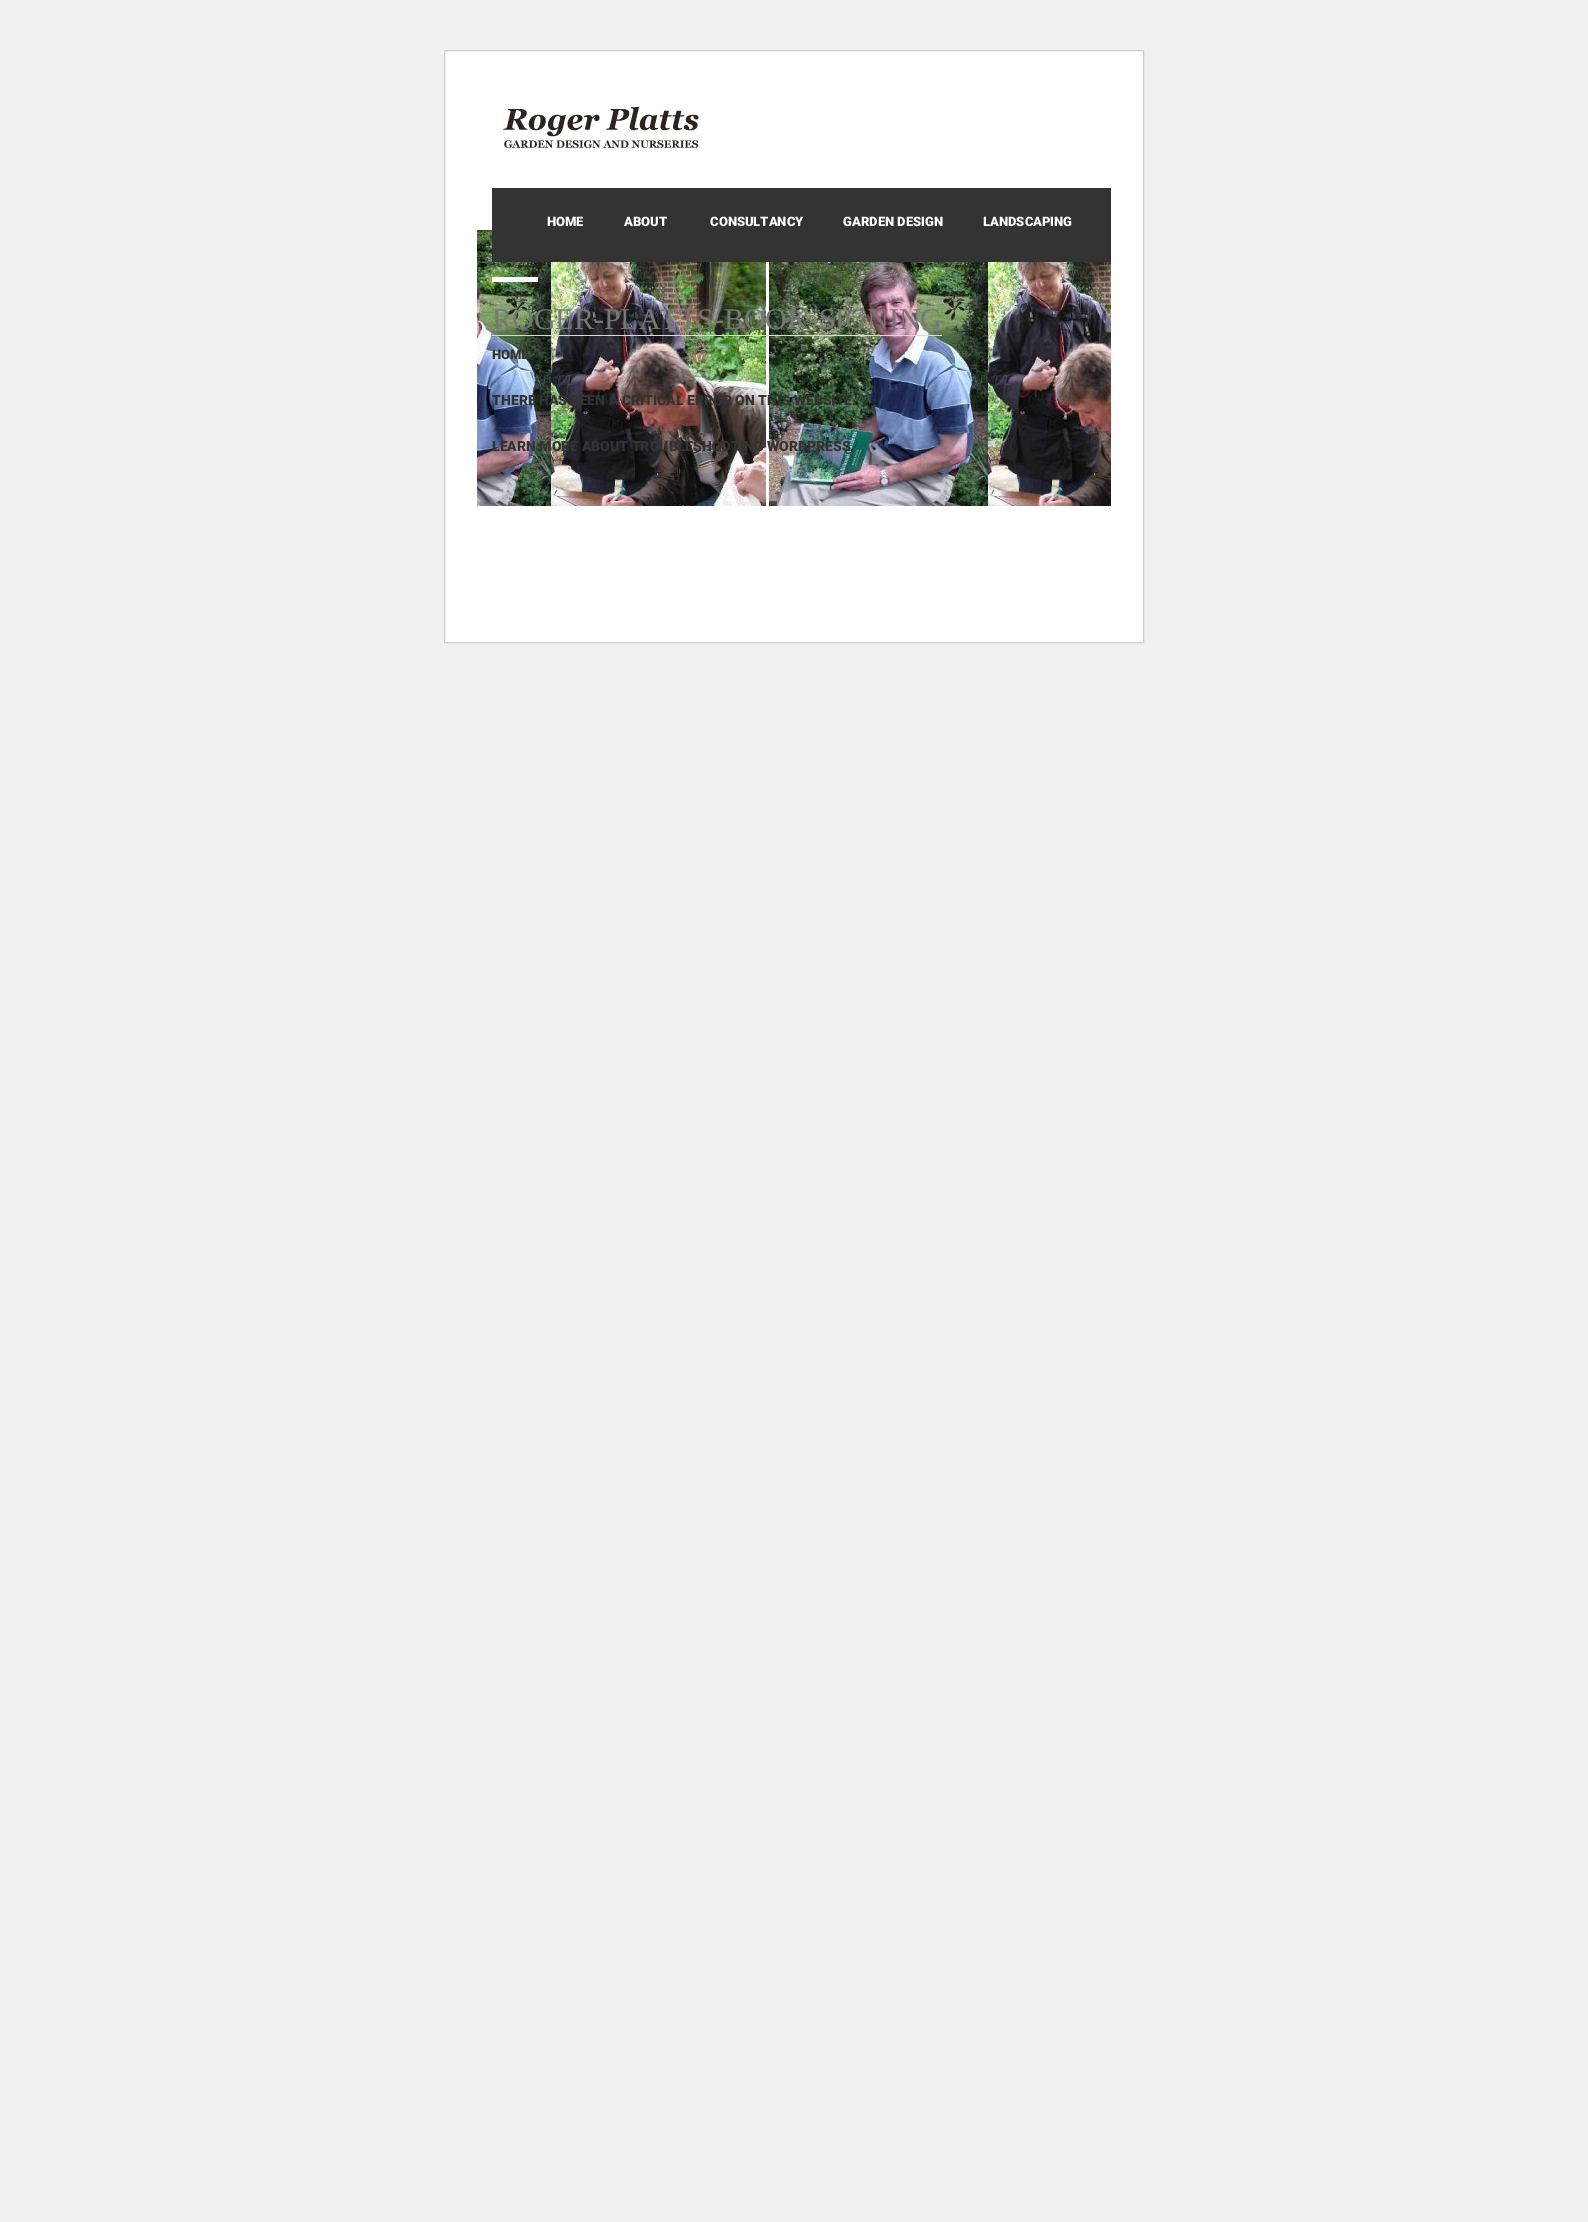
%!PS
<< /PageSize [1588 2222] >> setpagedevice
/picture { 5 dict begin { /h /w /y /x /name } { exch def } forall
  gsave x y translate w h scale
  w h 8 [w 0 0 h 0 0] name (r) file false 3 colorimage grestore end } def
0 2222 translate 1 -1 scale
4 setmiterlimit
0.945 setgray
0 0 1588 2222 rectfill
1 setgray
newpath 444.5 50.5 moveto 1143.5 50.5 lineto 1143.5 642.5 lineto 444.5 642.5 lineto closepath gsave fill grestore
0.8 0.816 0.831 setrgbcolor
stroke
(img1.rgb) 503 107 196 41 picture
(img2.rgb) 477 230 634 276 picture
0.2 setgray
492 188 619 74 rectfill
/Roboto-Black [13 0 0 -13 0 0] selectfont
1 setgray
547 226 moveto (HOME) show
624 226 moveto (ABOUT) show
710 226 moveto (CONSULTANCY) show
843 226 moveto (GARDEN DESIGN) show
983 226 moveto (LANDSCAPING) show
0.855 setgray
492 335 450 1 rectfill
1 setgray
492 277 46 5 rectfill
/LiberationSerif-Regular [30 0 0 -30 0 0] selectfont
0.467 setgray
492 329 moveto (ROGER-PLATTS-BOOK-SIGNING) show
/Roboto-Black [13 0 0 -13 0 0] selectfont
0.2 setgray
492 359 moveto (HOME) show
/Roboto-Black [14 0 0 -14 0 0] selectfont
492 405 moveto (THERE HAS BEEN A CRITICAL ERROR ON THIS WEBSITE.) show
492 451 moveto (LEARN MORE ABOUT TROUBLESHOOTING WORDPRESS.) show
showpage
